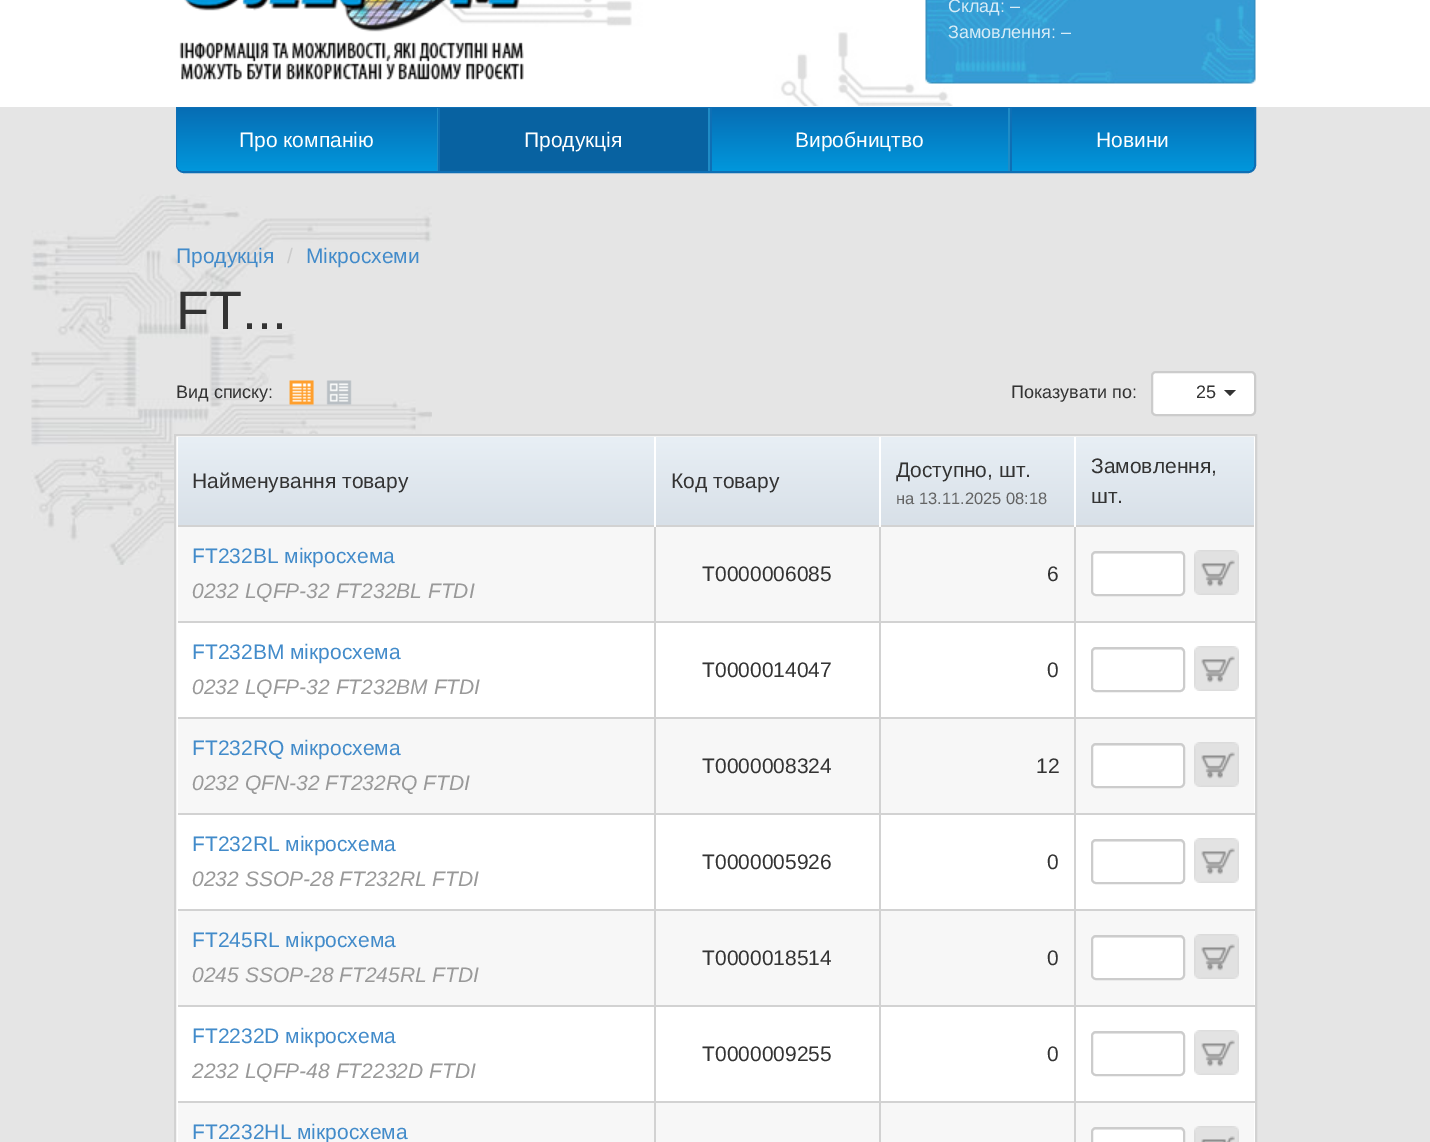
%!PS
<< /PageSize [1430 1142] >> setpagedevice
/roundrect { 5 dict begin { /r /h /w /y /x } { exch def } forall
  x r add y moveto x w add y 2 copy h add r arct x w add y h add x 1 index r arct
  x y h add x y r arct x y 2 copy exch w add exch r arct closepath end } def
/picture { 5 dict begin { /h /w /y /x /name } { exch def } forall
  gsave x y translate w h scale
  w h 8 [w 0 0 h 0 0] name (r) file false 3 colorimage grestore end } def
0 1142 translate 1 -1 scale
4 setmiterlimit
0.898 setgray
0 0 1430 1142 rectfill
1 setgray
0 0 1430 107 rectfill
(img1.rgb) 436 0 517 106 picture
(img2.rgb) 179 0 345 80 picture
(img3.rgb) 925 0 331 84 picture
/LiberationSans-Regular [18 0 0 -18 0 0] selectfont
0.843 0.925 0.969 setrgbcolor
948 12 moveto (Склад:) show
1010 12 moveto (–) show
948 38 moveto (Замовлення:) show
1061 38 moveto (–) show
0.016 0.522 0.796 setrgbcolor
newpath 177 108 moveto 1255 108 lineto 1255 165 lineto 1255 169 1252 172 1248 172 curveto 184 172 lineto 180 172 177 169 177 165 curveto closepath gsave fill grestore
0.055 0.435 0.71 setrgbcolor
2 setlinewidth
stroke
gsave newpath 177 108 moveto 438 108 lineto 438 171 lineto 185 171 lineto 180.5 171 177 167.5 177 163 curveto closepath clip newpath
<< /ShadingType 2 /ColorSpace /DeviceRGB /Coords [307 108 307 171] /Extend [true true] /Function << /FunctionType 2 /Domain [0 1] /C0 [0.027 0.427 0.706] /C1 [0.004 0.592 0.863] /N 1 >> >> shfill grestore
0.122 0.549 0.776 setrgbcolor
437 108 1 63 rectfill
/LiberationSans-Regular [21 0 0 -21 0 0] selectfont
1 setgray
239 147 moveto (Про компанію) show
0.031 0.384 0.631 setrgbcolor
440 108 268 63 rectfill
0.122 0.549 0.776 setrgbcolor
708 108 2 63 rectfill
0.055 0.435 0.71 setrgbcolor
438 108 2 63 rectfill
1 setgray
524 147 moveto (Продукція) show
gsave newpath 712 108 moveto 1008 108 lineto 1008 171 lineto 712 171 lineto closepath clip newpath
<< /ShadingType 2 /ColorSpace /DeviceRGB /Coords [860 108 860 171] /Extend [true true] /Function << /FunctionType 2 /Domain [0 1] /C0 [0.027 0.427 0.706] /C1 [0.004 0.592 0.863] /N 1 >> >> shfill grestore
0.122 0.549 0.776 setrgbcolor
1008 108 2 63 rectfill
0.055 0.435 0.71 setrgbcolor
710 108 2 63 rectfill
1 setgray
795 147 moveto (Виробництво) show
gsave newpath 1010 108 moveto 1254 108 lineto 1254 163 lineto 1254 167.5 1250.5 171 1246 171 curveto 1010 171 lineto closepath clip newpath
<< /ShadingType 2 /ColorSpace /DeviceRGB /Coords [1133 108 1133 171] /Extend [true true] /Function << /FunctionType 2 /Domain [0 1] /C0 [0.027 0.427 0.706] /C1 [0.004 0.592 0.863] /N 1 >> >> shfill grestore
0.055 0.435 0.71 setrgbcolor
1010 108 2 63 rectfill
1 setgray
1096 147 moveto (Новини) show
(img4.rgb) 31 194 401 371 picture
0.259 0.545 0.792 setrgbcolor
176 263 moveto (Продукція) show
0.8 setgray
287 263 moveto (/) show
0.259 0.545 0.792 setrgbcolor
306 263 moveto (Мікросхеми) show
/LiberationSans-Regular [54 0 0 -54 0 0] selectfont
0.2 setgray
176 329 moveto (FT...) show
/LiberationSans-Regular [18 0 0 -18 0 0] selectfont
176 398 moveto (Вид списку:) show
(img5.rgb) 289 380 25 25 picture
(img6.rgb) 326 380 26 25 picture
1011 398 moveto (Показувати по:) show
1 setgray
1152 372 103 43 4 roundrect gsave fill grestore
0.8 setgray
stroke
0.2 setgray
1196 398 moveto (25) show
newpath 1224 390 moveto 1236 390 lineto 1230 396 lineto closepath fill
1 setgray
176 436 1080 1 rectfill
1254 435 1 90 rectfill
176 435 2 90 rectfill
gsave newpath 178 437 moveto 654 437 lineto 654 525 lineto 178 525 lineto closepath clip newpath
<< /ShadingType 2 /ColorSpace /DeviceRGB /Coords [416 437 416 527] /Extend [true true] /Function << /FunctionType 2 /Domain [0 1] /C0 [0.91 0.937 0.961] /C1 [0.847 0.878 0.91] /N 1 >> >> shfill grestore
gsave newpath 656 437 moveto 879 437 lineto 879 525 lineto 656 525 lineto closepath clip newpath
<< /ShadingType 2 /ColorSpace /DeviceRGB /Coords [768 437 768 527] /Extend [true true] /Function << /FunctionType 2 /Domain [0 1] /C0 [0.91 0.937 0.961] /C1 [0.847 0.878 0.91] /N 1 >> >> shfill grestore
0.824 setgray
1074 525 182 2 rectfill
1 setgray
1254 621 1 521 rectfill
1254 525 1 98 rectfill
0.824 setgray
1074 1101 2 41 rectfill
879 1101 377 2 rectfill
1074 1005 2 98 rectfill
879 1005 377 2 rectfill
1074 909 2 98 rectfill
879 909 377 2 rectfill
1074 813 2 98 rectfill
879 813 377 2 rectfill
1074 717 2 98 rectfill
879 717 377 2 rectfill
1074 621 2 98 rectfill
879 621 197 2 rectfill
1074 621 182 2 rectfill
1074 525 2 98 rectfill
879 525 197 2 rectfill
879 1101 2 41 rectfill
654 1101 227 2 rectfill
879 1005 2 98 rectfill
654 1005 227 2 rectfill
879 909 2 98 rectfill
654 909 227 2 rectfill
879 813 2 98 rectfill
654 813 227 2 rectfill
879 717 2 98 rectfill
654 717 227 2 rectfill
879 621 2 98 rectfill
654 621 227 2 rectfill
879 525 2 98 rectfill
654 525 227 2 rectfill
654 1101 2 41 rectfill
654 1005 2 98 rectfill
654 909 2 98 rectfill
654 813 2 98 rectfill
654 717 2 98 rectfill
654 621 2 98 rectfill
654 525 2 98 rectfill
176 525 480 2 rectfill
1 setgray
654 435 2 92 rectfill
gsave newpath 881 437 moveto 1074 437 lineto 1074 525 lineto 881 525 lineto closepath clip newpath
<< /ShadingType 2 /ColorSpace /DeviceRGB /Coords [978 437 978 527] /Extend [true true] /Function << /FunctionType 2 /Domain [0 1] /C0 [0.91 0.937 0.961] /C1 [0.847 0.878 0.91] /N 1 >> >> shfill grestore
879 435 2 92 rectfill
gsave newpath 1076 437 moveto 1254 437 lineto 1254 525 lineto 1076 525 lineto closepath clip newpath
<< /ShadingType 2 /ColorSpace /DeviceRGB /Coords [1166 437 1166 527] /Extend [true true] /Function << /FunctionType 2 /Domain [0 1] /C0 [0.91 0.937 0.961] /C1 [0.847 0.878 0.91] /N 1 >> >> shfill grestore
1074 435 2 92 rectfill
0.969 setgray
178 527 476 94 rectfill
1 setgray
176 1101 2 41 rectfill
0.824 setgray
176 1101 480 2 rectfill
1 setgray
176 1005 2 98 rectfill
0.824 setgray
176 1005 480 2 rectfill
1 setgray
176 909 2 98 rectfill
0.824 setgray
176 909 480 2 rectfill
1 setgray
176 813 2 98 rectfill
0.824 setgray
176 813 480 2 rectfill
1 setgray
176 717 2 98 rectfill
0.824 setgray
176 717 480 2 rectfill
1 setgray
176 621 2 98 rectfill
0.824 setgray
176 621 480 2 rectfill
1 setgray
176 525 2 98 rectfill
0.969 setgray
656 527 223 94 rectfill
881 527 193 94 rectfill
1076 527 178 94 rectfill
1 setgray
1091 551 94 45 5 roundrect fill
0.925 setgray
newpath 1095 554 moveto 1180 554 lineto 1182 554 1184 555 1184 556 curveto 1184 548 1170 552 1167 552 curveto 1109 552 lineto 1106 552 1092 548 1092 556 curveto 1092 555 1093 554 1095 554 curveto closepath fill
0.8 setgray
1092 552 92 43 4 roundrect stroke
1 setgray
178 623 476 94 rectfill
656 623 223 94 rectfill
881 623 193 94 rectfill
1076 623 178 94 rectfill
0.925 setgray
newpath 1095 650 moveto 1180 650 lineto 1182 650 1184 651 1184 652 curveto 1184 644 1170 648 1167 648 curveto 1109 648 lineto 1106 648 1092 644 1092 652 curveto 1092 651 1093 650 1095 650 curveto closepath fill
0.8 setgray
1092 648 92 43 4 roundrect stroke
0.969 setgray
178 719 476 94 rectfill
656 719 223 94 rectfill
881 719 193 94 rectfill
1076 719 178 94 rectfill
1 setgray
1091 743 94 45 5 roundrect fill
0.925 setgray
newpath 1095 746 moveto 1180 746 lineto 1182 746 1184 747 1184 748 curveto 1184 740 1170 744 1167 744 curveto 1109 744 lineto 1106 744 1092 740 1092 748 curveto 1092 747 1093 746 1095 746 curveto closepath fill
0.8 setgray
1092 744 92 43 4 roundrect stroke
1 setgray
178 815 476 94 rectfill
656 815 223 94 rectfill
881 815 193 94 rectfill
1076 815 178 94 rectfill
0.925 setgray
newpath 1095 842 moveto 1180 842 lineto 1182 842 1184 843 1184 844 curveto 1184 836 1170 840 1167 840 curveto 1109 840 lineto 1106 840 1092 836 1092 844 curveto 1092 843 1093 842 1095 842 curveto closepath fill
0.8 setgray
1092 840 92 43 4 roundrect stroke
0.969 setgray
178 911 476 94 rectfill
656 911 223 94 rectfill
881 911 193 94 rectfill
1076 911 178 94 rectfill
1 setgray
1091 935 94 45 5 roundrect fill
0.925 setgray
newpath 1095 938 moveto 1180 938 lineto 1182 938 1184 939 1184 940 curveto 1184 932 1170 936 1167 936 curveto 1109 936 lineto 1106 936 1092 932 1092 940 curveto 1092 939 1093 938 1095 938 curveto closepath fill
0.8 setgray
1092 936 92 43 4 roundrect stroke
1 setgray
178 1007 476 94 rectfill
656 1007 223 94 rectfill
881 1007 193 94 rectfill
1076 1007 178 94 rectfill
0.925 setgray
newpath 1095 1034 moveto 1180 1034 lineto 1182 1034 1184 1035 1184 1036 curveto 1184 1028 1170 1032 1167 1032 curveto 1109 1032 lineto 1106 1032 1092 1028 1092 1036 curveto 1092 1035 1093 1034 1095 1034 curveto closepath fill
0.8 setgray
1092 1032 92 43 4 roundrect stroke
0.969 setgray
656 1103 223 39 rectfill
1076 1103 178 39 rectfill
1 setgray
1091 1127 94 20 5 roundrect fill
0.925 setgray
newpath 1095 1130 moveto 1180 1130 lineto 1182 1130 1184 1131 1184 1132 curveto 1184 1124 1170 1128 1167 1128 curveto 1109 1128 lineto 1106 1128 1092 1124 1092 1132 curveto 1092 1131 1093 1130 1095 1130 curveto closepath fill
0.8 setgray
1092 1128 92 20 4 roundrect stroke
0.969 setgray
178 1103 476 39 rectfill
881 1103 193 39 rectfill
0.824 setgray
175 435 1081 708 rectstroke
/LiberationSans-Regular [21 0 0 -21 0 0] selectfont
0.2 setgray
192 488 moveto (Найменування товару) show
671 488 moveto (Код товару) show
896 477 moveto (Доступно, шт.) show
/LiberationSans-Regular [16.5 0 0 -16.5 0 0] selectfont
0.388 setgray
896 504 moveto (на 13.11.2025 08:18) show
/LiberationSans-Regular [21 0 0 -21 0 0] selectfont
0.2 setgray
1091 473 moveto (Замовлення,) show
1091 503 moveto (шт.) show
0.259 0.545 0.792 setrgbcolor
192 563 moveto (FT232BL мікросхема) show
/LiberationSans-Italic [21 0 0 -21 0 0] selectfont
0.6 setgray
192 598 moveto (0232 LQFP-32 FT232BL FTDI) show
/LiberationSans-Regular [21 0 0 -21 0 0] selectfont
0.2 setgray
702 581 moveto (Т0000006085) show
1047 581 moveto (6) show
(img7.rgb) 1194 550 45 45 picture
0.259 0.545 0.792 setrgbcolor
192 659 moveto (FT232BM мікросхема) show
/LiberationSans-Italic [21 0 0 -21 0 0] selectfont
0.6 setgray
192 694 moveto (0232 LQFP-32 FT232BM FTDI) show
/LiberationSans-Regular [21 0 0 -21 0 0] selectfont
0.2 setgray
702 677 moveto (Т0000014047) show
1047 677 moveto (0) show
(img8.rgb) 1194 646 45 45 picture
0.259 0.545 0.792 setrgbcolor
192 755 moveto (FT232RQ мікросхема) show
/LiberationSans-Italic [21 0 0 -21 0 0] selectfont
0.6 setgray
192 790 moveto (0232 QFN-32 FT232RQ FTDI) show
/LiberationSans-Regular [21 0 0 -21 0 0] selectfont
0.2 setgray
702 773 moveto (Т0000008324) show
1036 773 moveto (12) show
(img7.rgb) 1194 742 45 45 picture
0.259 0.545 0.792 setrgbcolor
192 851 moveto (FT232RL мікросхема) show
/LiberationSans-Italic [21 0 0 -21 0 0] selectfont
0.6 setgray
192 886 moveto (0232 SSOP-28 FT232RL FTDI) show
/LiberationSans-Regular [21 0 0 -21 0 0] selectfont
0.2 setgray
702 869 moveto (Т0000005926) show
1047 869 moveto (0) show
(img8.rgb) 1194 838 45 45 picture
0.259 0.545 0.792 setrgbcolor
192 947 moveto (FT245RL мікросхема) show
/LiberationSans-Italic [21 0 0 -21 0 0] selectfont
0.6 setgray
192 982 moveto (0245 SSOP-28 FT245RL FTDI) show
/LiberationSans-Regular [21 0 0 -21 0 0] selectfont
0.2 setgray
702 965 moveto (Т0000018514) show
1047 965 moveto (0) show
(img7.rgb) 1194 934 45 45 picture
0.259 0.545 0.792 setrgbcolor
192 1043 moveto (FT2232D мікросхема) show
/LiberationSans-Italic [21 0 0 -21 0 0] selectfont
0.6 setgray
192 1078 moveto (2232 LQFP-48 FT2232D FTDI) show
/LiberationSans-Regular [21 0 0 -21 0 0] selectfont
0.2 setgray
702 1061 moveto (Т0000009255) show
1047 1061 moveto (0) show
(img8.rgb) 1194 1030 45 45 picture
(img9.rgb) 1194 1126 45 16 picture
0.259 0.545 0.792 setrgbcolor
192 1139 moveto (FT2232HL мікросхема) show
showpage
